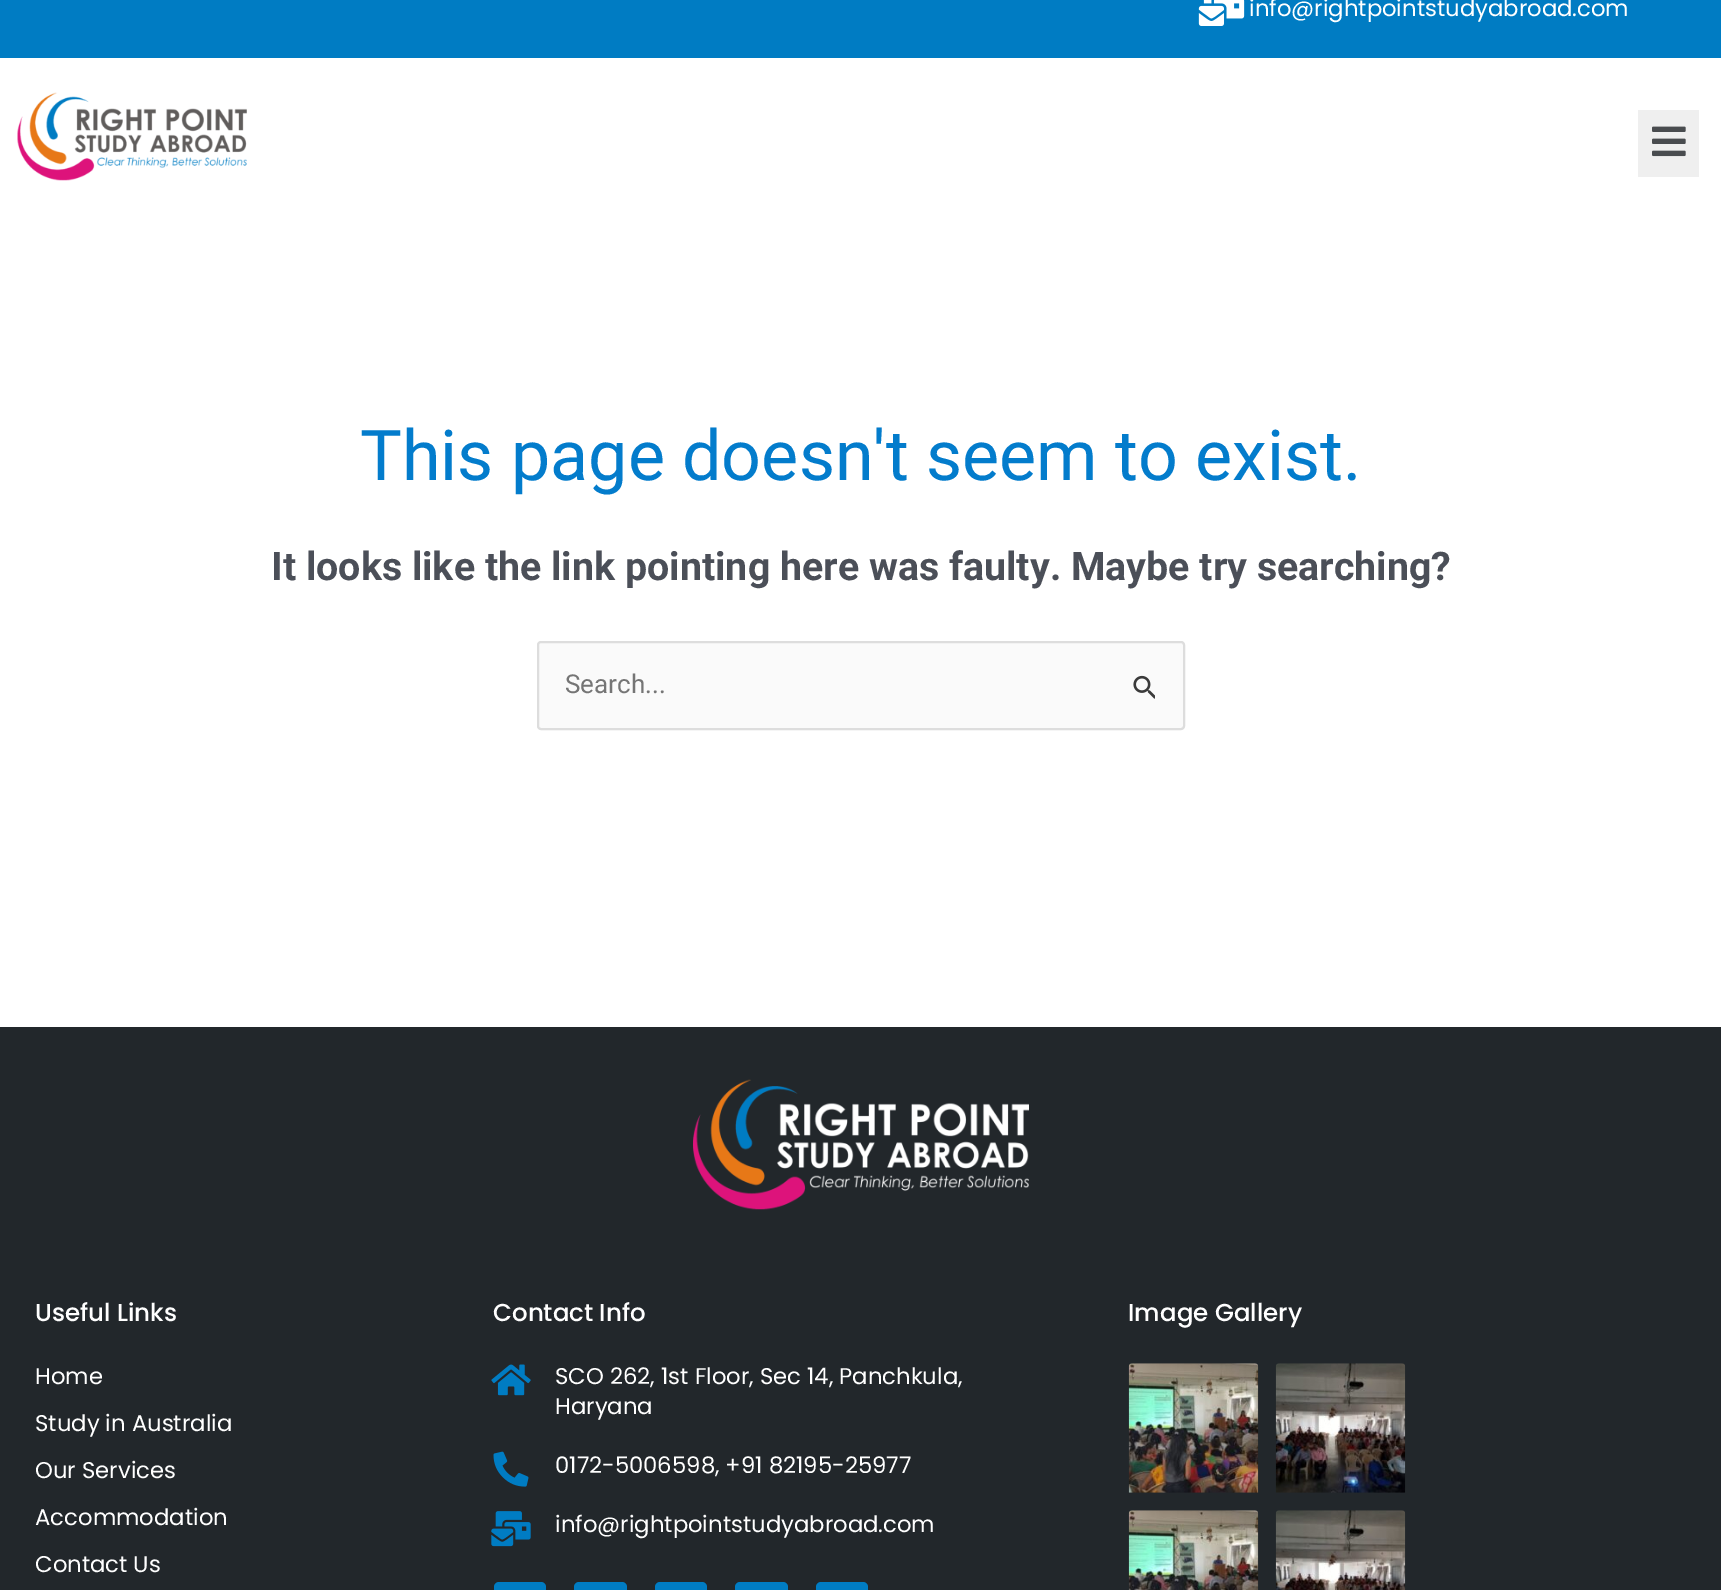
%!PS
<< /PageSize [1721 1590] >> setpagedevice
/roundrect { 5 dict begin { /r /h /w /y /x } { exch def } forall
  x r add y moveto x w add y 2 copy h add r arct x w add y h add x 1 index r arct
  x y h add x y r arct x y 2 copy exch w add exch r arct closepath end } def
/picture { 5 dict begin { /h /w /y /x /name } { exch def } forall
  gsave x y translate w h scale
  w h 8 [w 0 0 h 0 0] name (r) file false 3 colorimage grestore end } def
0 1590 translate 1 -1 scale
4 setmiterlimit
1 setgray
0 0 1721 1590 rectfill
0 0.486 0.765 setrgbcolor
0 0 1721 58 rectfill
(img1.rgb) 1198 0 47 26 picture
/Poppins-Regular [22.75 0 0 -22.75 0 0] selectfont
1 setgray
1249 16 moveto (info@rightpointstudyabroad.com) show
(img2.rgb) 17 92 230 89 picture
0.937 setgray
1638 110 61 67 rectfill
(img3.rgb) 1652 126 34 31 picture
/Roboto-Regular [70 0 0 -70 0 0] selectfont
0.012 0.486 0.8 setrgbcolor
360 480 moveto (This page doesn't seem to exist.) show
/Roboto-Bold [39.4 0 0 -39.4 0 0] selectfont
0.294 0.31 0.345 setrgbcolor
271 580 moveto (It looks like the link pointing here was faulty. Maybe try searching?) show
0.98 setgray
538 642 646 87 3 roundrect gsave fill grestore
0.867 setgray
2 setlinewidth
stroke
/Roboto-Regular [26 0 0 -26 0 0] selectfont
0.459 setgray
565 693 moveto (Search...) show
(img4.rgb) 1133 675 22 24 picture
0.133 0.153 0.169 setrgbcolor
0 1027 1721 563 rectfill
(img5.rgb) 693 1079 336 131 picture
/Poppins-Medium [24.5 0 0 -24.5 0 0] selectfont
1 setgray
35 1321 moveto (Useful Links) show
/Poppins-Regular [22.75 0 0 -22.75 0 0] selectfont
35 1384 moveto (Home) show
35 1431 moveto (Study in Australia) show
35 1478 moveto (Our Services) show
35 1525 moveto (Accommodation) show
35 1572 moveto (Contact Us) show
/Poppins-Medium [24.5 0 0 -24.5 0 0] selectfont
493 1321 moveto (Contact Info) show
(img6.rgb) 491 1364 40 32 picture
/Poppins-Regular [22.75 0 0 -22.75 0 0] selectfont
555 1384 moveto (SCO 262, 1st Floor, Sec 14, Panchkula,) show
555 1414 moveto (Haryana) show
(img7.rgb) 493 1451 36 36 picture
555 1473 moveto (0172-5006598, +91 82195-25977) show
(img8.rgb) 491 1511 40 36 picture
555 1532 moveto (info@rightpointstudyabroad.com) show
0 0.486 0.765 setrgbcolor
494 1582 52 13 5 roundrect fill
574 1582 53 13 5 roundrect fill
655 1582 52 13 5 roundrect fill
735 1582 53 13 5 roundrect fill
816 1582 52 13 5 roundrect fill
/Poppins-Medium [24.5 0 0 -24.5 0 0] selectfont
1 setgray
1128 1321 moveto (Image Gallery) show
(img9.rgb) 1128 1363 131 130 picture
(img10.rgb) 1275 1363 131 130 picture
(img11.rgb) 1128 1510 131 80 picture
(img12.rgb) 1275 1510 131 80 picture
showpage
